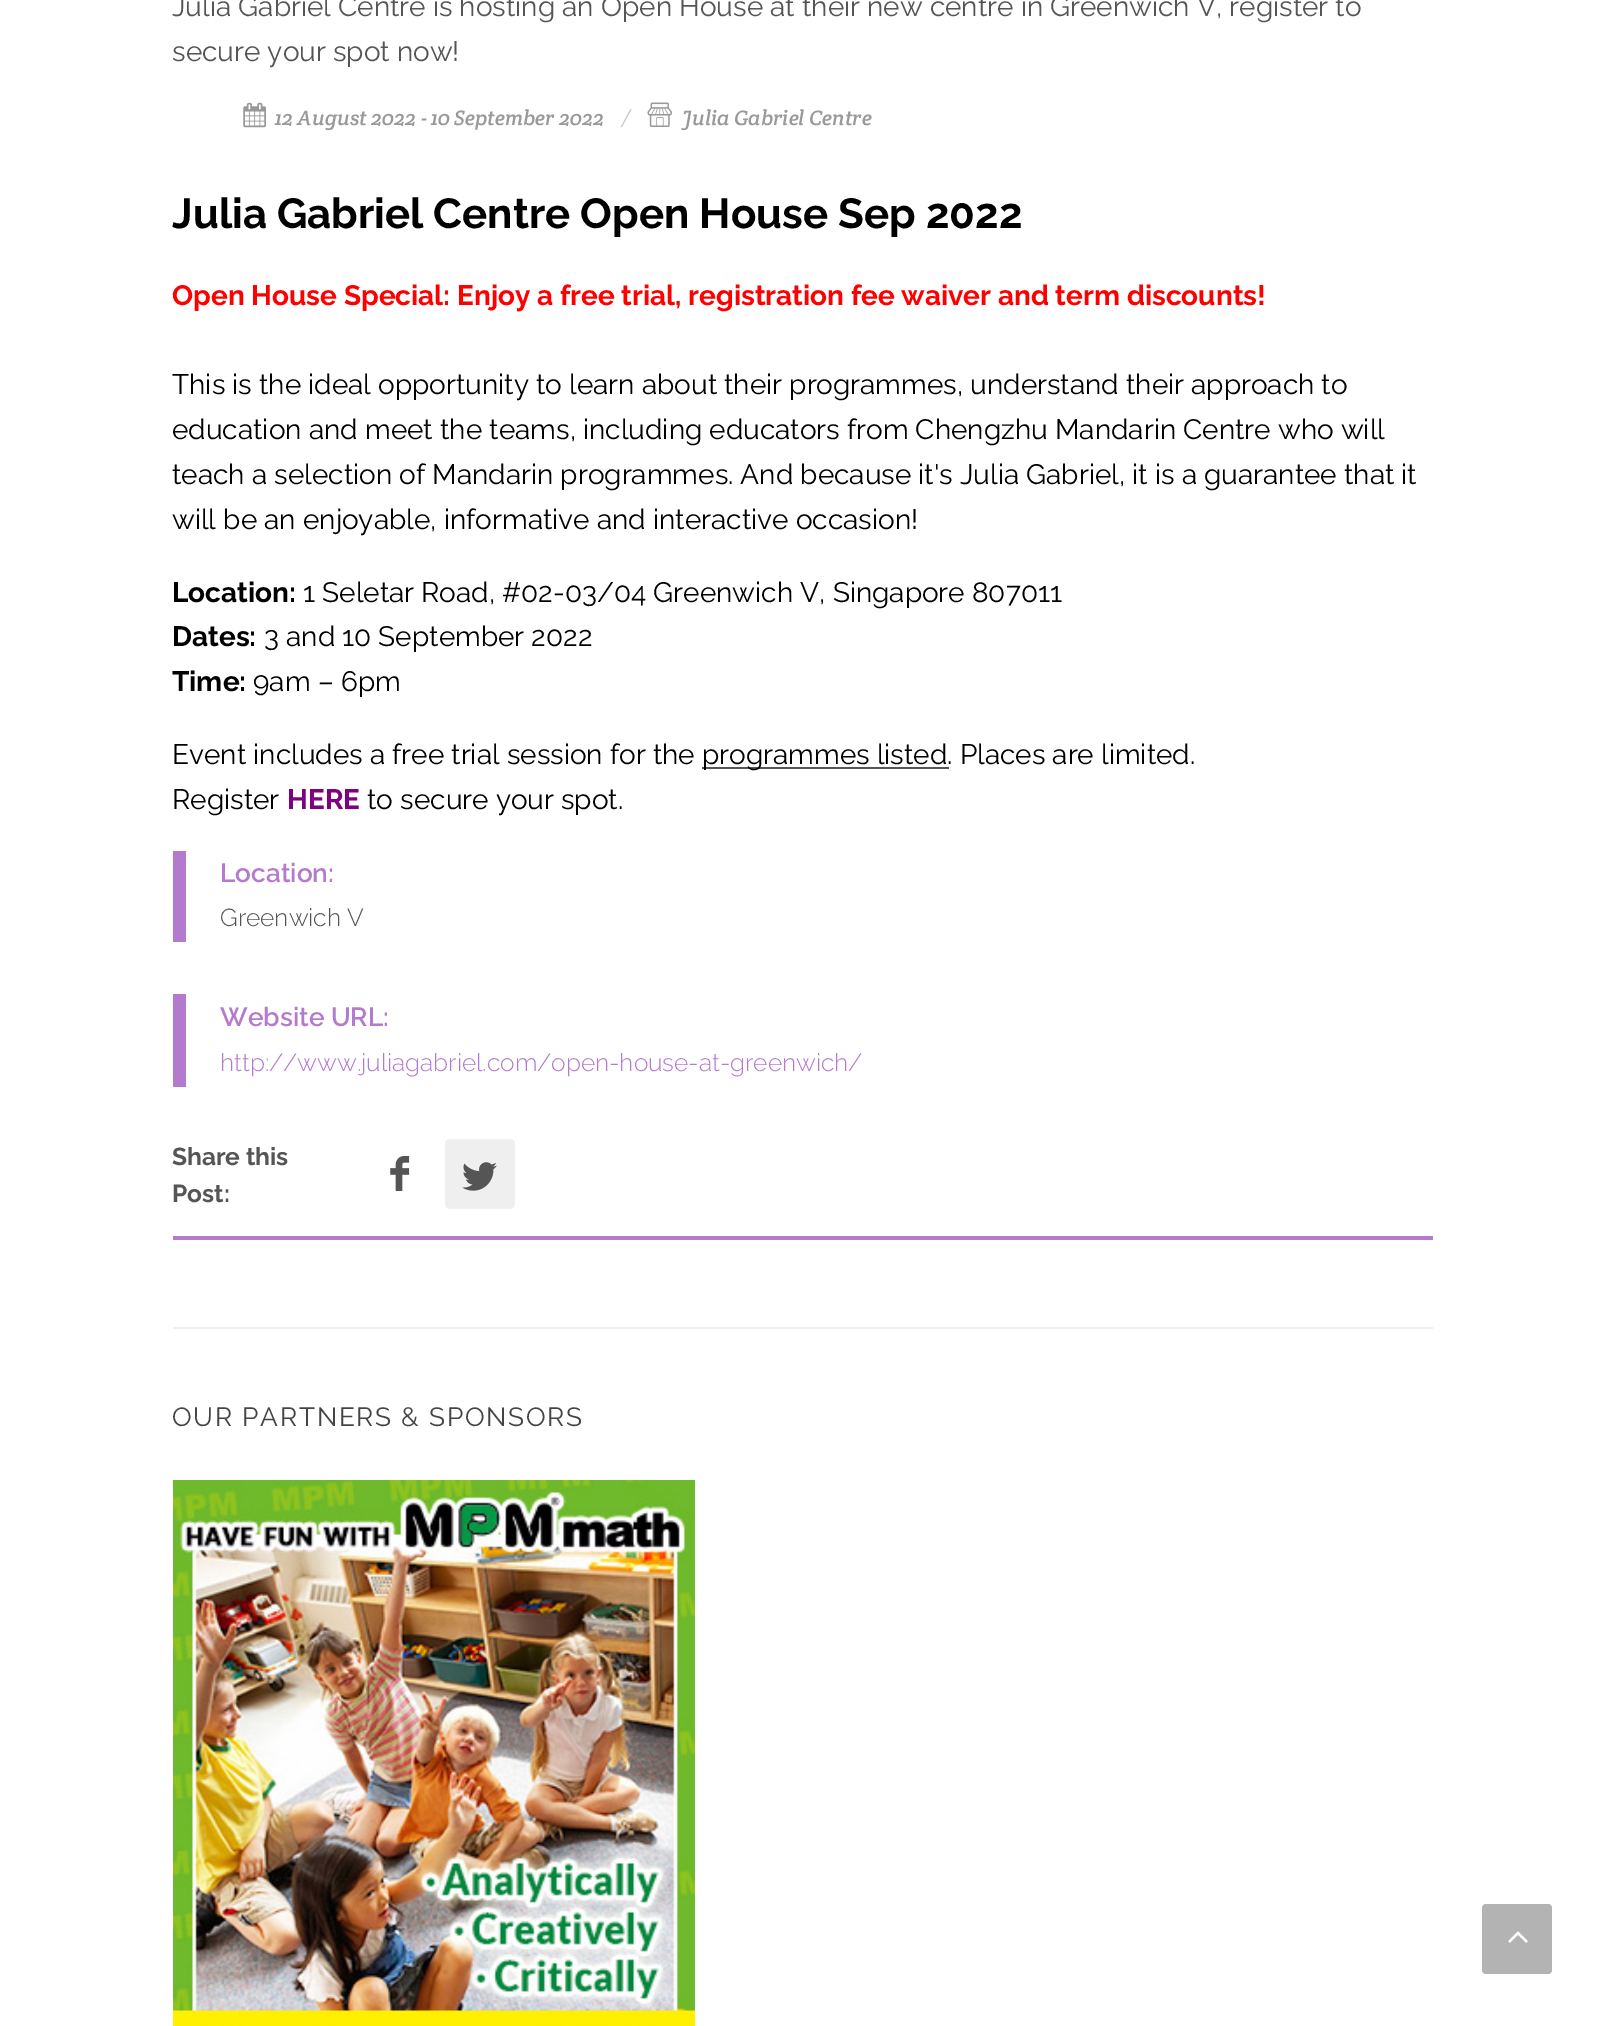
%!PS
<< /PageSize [1604 2026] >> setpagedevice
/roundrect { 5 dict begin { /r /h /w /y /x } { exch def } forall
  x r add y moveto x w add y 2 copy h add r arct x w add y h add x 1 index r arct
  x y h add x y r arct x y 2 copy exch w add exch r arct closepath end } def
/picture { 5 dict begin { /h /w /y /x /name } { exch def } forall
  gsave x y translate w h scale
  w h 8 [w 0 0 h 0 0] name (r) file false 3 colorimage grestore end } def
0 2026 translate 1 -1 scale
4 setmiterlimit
1 setgray
0 0 1604 2026 rectfill
0.933 setgray
173 1327 1260 2 rectfill
/Raleway-Regular [28 0 0 -28 0 0] selectfont
0.333 setgray
172 16 moveto (Julia Gabriel Centre is hosting an Open House at their new centre in Greenwich V, register to) show
172 61 moveto (secure your spot now!) show
(img1.rgb) 243 102 23 26 picture
/CreteRound-Italic [21 0 0 -21 0 0] selectfont
0.6 setgray
275 125 moveto (12 August 2022 - 10 September 2022) show
0.8 setgray
621 125 moveto (/) show
(img2.rgb) 647 102 25 25 picture
0.6 setgray
682 125 moveto (Julia Gabriel Centre) show
/Raleway-Bold [42 0 0 -42 0 0] selectfont
0 setgray
172 228 moveto (Julia Gabriel Centre Open House Sep 2022) show
/Raleway-Bold [28 0 0 -28 0 0] selectfont
1 0 0 setrgbcolor
172 305 moveto (Open House Special: Enjoy a free trial, registration fee waiver and term discounts!) show
/Raleway-Regular [28 0 0 -28 0 0] selectfont
0 setgray
172 394 moveto (This is the ideal opportunity to learn about their programmes, understand their approach to) show
172 439 moveto (education and meet the teams, including educators from Chengzhu Mandarin Centre who will) show
172 484 moveto (teach a selection of Mandarin programmes. And because it's Julia Gabriel, it is a guarantee that it) show
172 529 moveto (will be an enjoyable, informative and interactive occasion!) show
/Raleway-Bold [28 0 0 -28 0 0] selectfont
172 602 moveto (Location:) show
/Raleway-Regular [28 0 0 -28 0 0] selectfont
303 602 moveto (1 Seletar Road, #02-03/04 Greenwich V, Singapore 807011) show
/Raleway-Bold [28 0 0 -28 0 0] selectfont
172 646 moveto (Dates:) show
/Raleway-Regular [28 0 0 -28 0 0] selectfont
264 646 moveto (3 and 10 September 2022) show
/Raleway-Bold [28 0 0 -28 0 0] selectfont
172 691 moveto (Time:) show
/Raleway-Regular [28 0 0 -28 0 0] selectfont
253 691 moveto (9am – 6pm) show
172 764 moveto (Event includes a free trial session for the) show
0.333 setgray
702 767 247 2 rectfill
0 setgray
702 764 moveto (programmes listed. Places are limited.) show
172 809 moveto (Register) show
/Raleway-Bold [28 0 0 -28 0 0] selectfont
0.502 0 0.502 setrgbcolor
287 809 moveto (HERE) show
/Raleway-Regular [28 0 0 -28 0 0] selectfont
0 setgray
367 809 moveto (to secure your spot.) show
0.706 0.478 0.808 setrgbcolor
173 851 13 91 rectfill
/Raleway-SemiBold [26.25 0 0 -26.25 0 0] selectfont
220 882 moveto (Location:) show
/Raleway-Light [24.5 0 0 -24.5 0 0] selectfont
0.333 setgray
220 926 moveto (Greenwich V) show
0.706 0.478 0.808 setrgbcolor
173 994 13 93 rectfill
/Raleway-SemiBold [26.25 0 0 -26.25 0 0] selectfont
220 1026 moveto (Website URL:) show
/Raleway-Light [24.5 0 0 -24.5 0 0] selectfont
220 1071 moveto (http://www.juliagabriel.com/open-house-at-greenwich/) show
/Raleway-Bold [24.5 0 0 -24.5 0 0] selectfont
0.333 setgray
172 1165 moveto (Share this) show
172 1202 moveto (Post:) show
(img3.rgb) 390 1156 20 35 picture
0.937 setgray
445 1139 70 70 5 roundrect fill
(img4.rgb) 462 1162 35 29 picture
0.706 0.478 0.808 setrgbcolor
173 1236 1260 4 rectfill
/Raleway-Regular [26.25 0 0 -26.25 0 0] selectfont
0.267 setgray
172 1426 moveto 1.75 0 (OUR PARTNERS & SPONSORS) ashow
(img5.rgb) 173 1480 522 546 picture
0.702 setgray
1482 1904 70 70 4 roundrect fill
(img6.rgb) 1508 1931 20 12 picture
showpage
